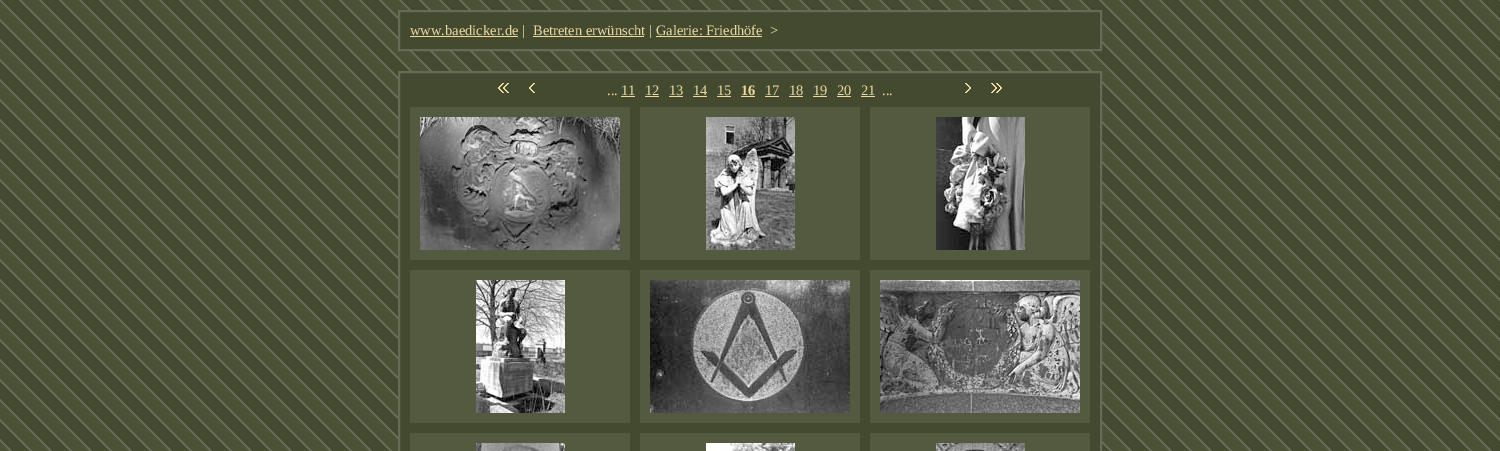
%!PS
<< /PageSize [1500 451] >> setpagedevice
/picture { 5 dict begin { /h /w /y /x /name } { exch def } forall
  gsave x y translate w h scale
  w h 8 [w 0 0 h 0 0] name (r) file false 3 colorimage grestore end } def
0 451 translate 1 -1 scale
4 setmiterlimit
1 setgray
0 0 1500 451 rectfill
(img1.rgb) 0 0 1500 451 picture
0.263 0.29 0.188 setrgbcolor
newpath 399 11 moveto 1101 11 lineto 1101 50 lineto 399 50 lineto closepath gsave fill grestore
0.4 0.42 0.333 setrgbcolor
2 setlinewidth
stroke
0.933 0.855 0.624 setrgbcolor
410 36 108 1 rectfill
/LiberationSerif-Regular [14.5 0 0 -14.5 0 0] selectfont
410 35 moveto (www.baedicker.de |) show
533 36 111 1 rectfill
533 35 moveto (Betreten erwünscht |) show
656 35 moveto (Galerie: Friedhöfe) show
656 36 106 1 rectfill
770 35 moveto (>) show
0.263 0.29 0.188 setrgbcolor
newpath 399 72 moveto 1101 72 lineto 1101 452 lineto 399 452 lineto closepath gsave fill grestore
0.4 0.42 0.333 setrgbcolor
stroke
(img2.rgb) 498 83 11 10 picture
(img3.rgb) 529 83 6 10 picture
0.933 0.855 0.624 setrgbcolor
607 95 moveto (...) show
621 95 moveto (11) show
621 96 14 1 rectfill
645 95 moveto (12) show
645 96 14 1 rectfill
669 95 moveto (13) show
669 96 14 1 rectfill
693 95 moveto (14) show
693 96 14 1 rectfill
717 95 moveto (15) show
717 96 14 1 rectfill
/LiberationSerif-Bold [14.5 0 0 -14.5 0 0] selectfont
741 95 moveto (16) show
741 96 14 1 rectfill
/LiberationSerif-Regular [14.5 0 0 -14.5 0 0] selectfont
765 95 moveto (17) show
765 96 14 1 rectfill
789 95 moveto (18) show
789 96 14 1 rectfill
813 95 moveto (19) show
813 96 14 1 rectfill
837 95 moveto (20) show
837 96 14 1 rectfill
861 95 moveto (21) show
861 96 14 1 rectfill
882 95 moveto (...) show
(img4.rgb) 965 83 6 10 picture
(img5.rgb) 991 83 11 10 picture
0.325 0.353 0.251 setrgbcolor
410 107 220 153 rectfill
(img6.rgb) 420 117 200 133 picture
640 107 220 153 rectfill
(img7.rgb) 706 117 89 133 picture
870 107 220 153 rectfill
(img8.rgb) 936 117 89 133 picture
410 270 220 153 rectfill
(img9.rgb) 476 280 89 133 picture
640 270 220 153 rectfill
(img10.rgb) 650 280 200 133 picture
870 270 220 153 rectfill
(img11.rgb) 880 280 200 133 picture
410 433 220 18 rectfill
(img12.rgb) 476 443 89 8 picture
640 433 220 18 rectfill
(img13.rgb) 706 443 89 8 picture
870 433 220 18 rectfill
(img14.rgb) 936 443 89 8 picture
showpage
